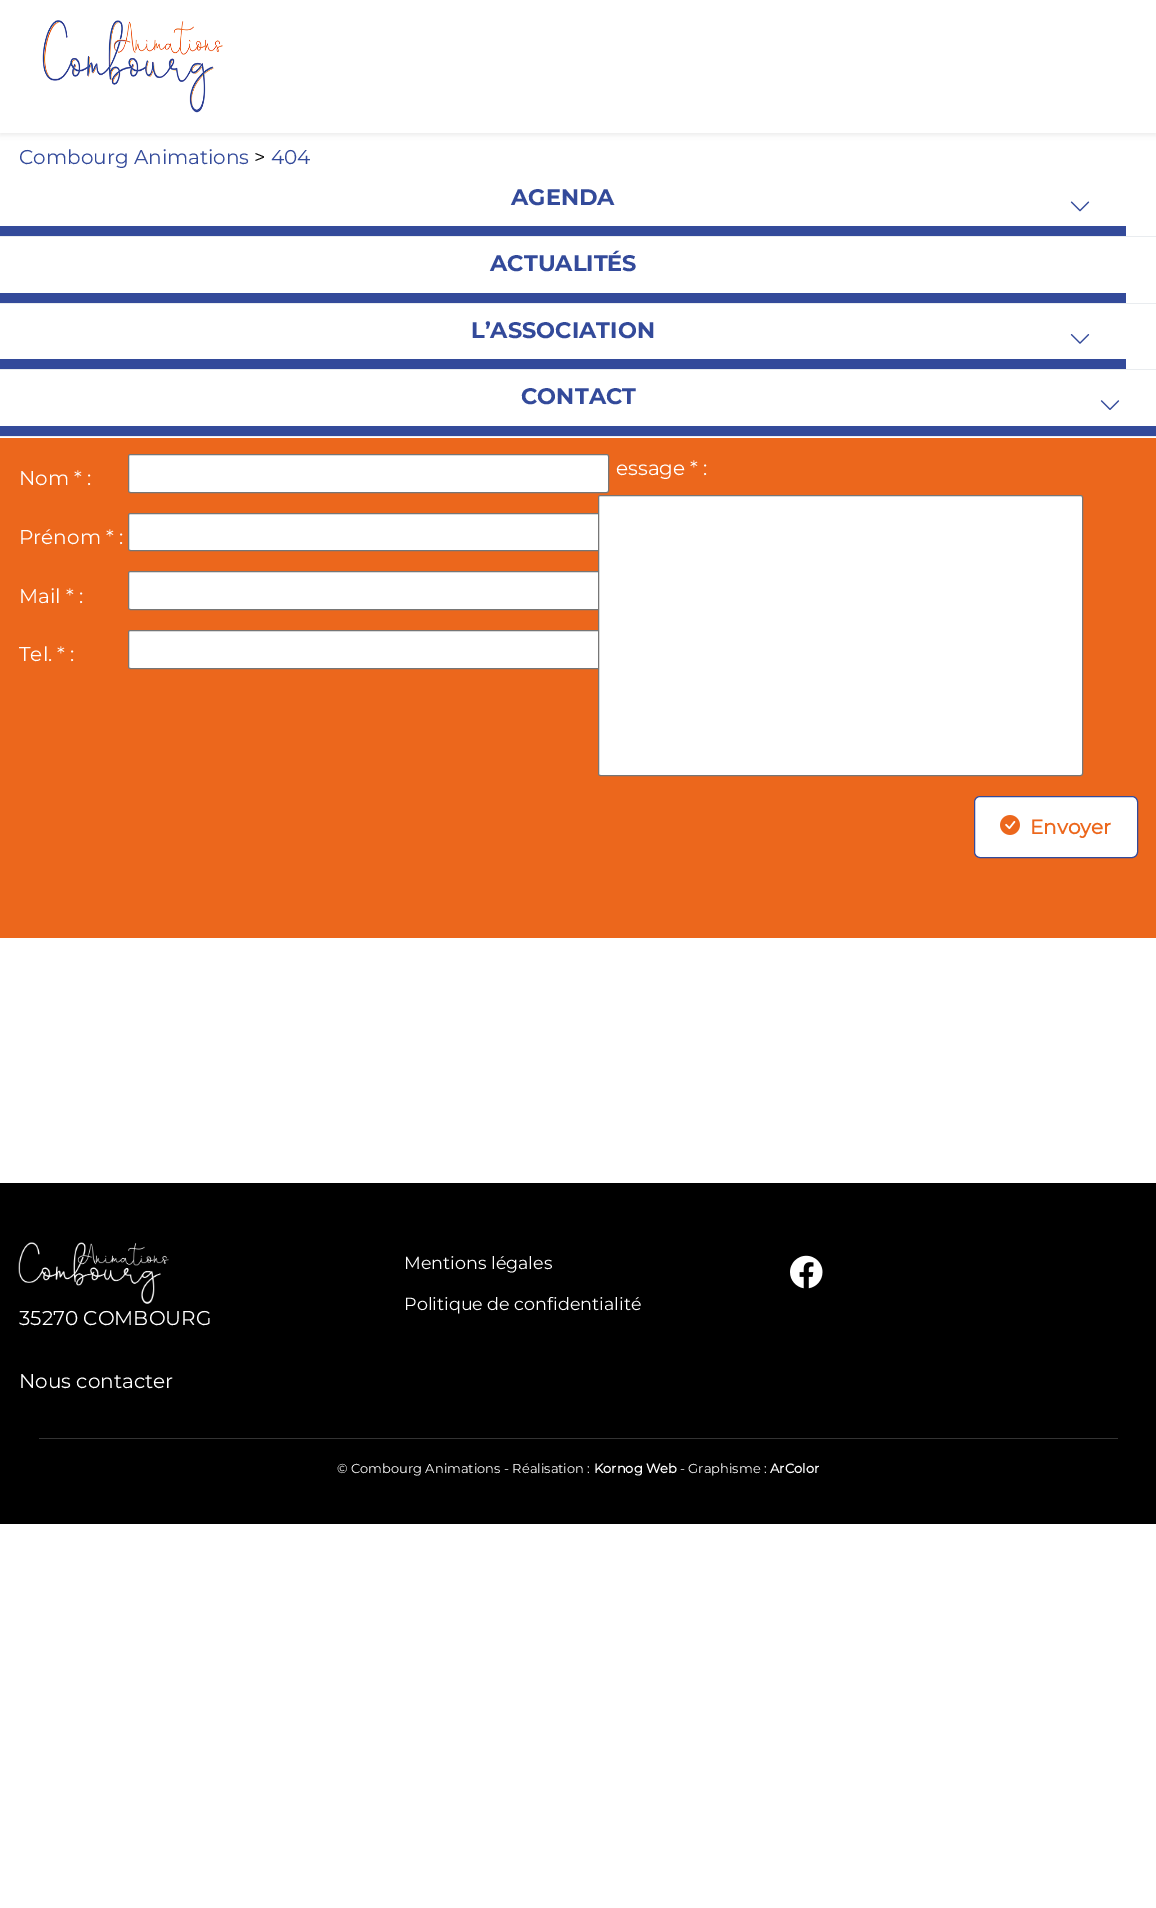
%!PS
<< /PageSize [1156 1908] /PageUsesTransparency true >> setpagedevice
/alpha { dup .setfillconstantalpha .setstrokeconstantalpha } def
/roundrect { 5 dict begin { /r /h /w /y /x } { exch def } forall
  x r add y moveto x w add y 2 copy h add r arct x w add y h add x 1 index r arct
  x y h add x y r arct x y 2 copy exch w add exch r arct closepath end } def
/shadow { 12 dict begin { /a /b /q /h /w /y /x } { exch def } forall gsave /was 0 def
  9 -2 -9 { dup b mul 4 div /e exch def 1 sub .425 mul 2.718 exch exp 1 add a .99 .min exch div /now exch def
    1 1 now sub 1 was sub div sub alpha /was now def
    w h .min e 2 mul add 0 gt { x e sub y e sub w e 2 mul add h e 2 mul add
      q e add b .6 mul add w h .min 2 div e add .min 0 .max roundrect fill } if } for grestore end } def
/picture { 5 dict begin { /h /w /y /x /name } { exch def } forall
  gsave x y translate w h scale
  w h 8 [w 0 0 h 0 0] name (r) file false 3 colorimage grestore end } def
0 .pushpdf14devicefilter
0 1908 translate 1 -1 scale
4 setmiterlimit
1 setgray
0 0 1156 1908 rectfill
/Montserrat-Regular [20 0 0 -20 0 0] selectfont
0.2 0.29 0.604 setrgbcolor
19 164 moveto (Combourg Animations) show
0 setgray
254 164 moveto (>) show
0.2 0.29 0.604 setrgbcolor
271 164 moveto (404) show
0.925 0.404 0.11 setrgbcolor
0 438 1156 500 rectfill
1 setgray
19 485 moveto (Nom * :) show
128.5 454.5 480 38 2 roundrect gsave fill grestore
0.463 setgray
stroke
1 setgray
19 544 moveto (Prénom * :) show
128.5 513.5 480 37 2 roundrect gsave fill grestore
0.463 setgray
stroke
1 setgray
19 603 moveto (Mail * :) show
128.5 571.5 480 38 2 roundrect gsave fill grestore
0.463 setgray
stroke
1 setgray
19 661 moveto (Tel. * :) show
128.5 630.5 480 38 2 roundrect gsave fill grestore
0.463 setgray
stroke
1 setgray
616 475 moveto (essage * :) show
598.5 495.5 484 280 2 roundrect gsave fill grestore
0.463 setgray
stroke
1 setgray
974.5 796.5 163 61 5.5 roundrect gsave fill grestore
0.2 0.29 0.604 setrgbcolor
stroke
(img1.rgb) 1000 815 20 20 picture
/Montserrat-Bold [20 0 0 -20 0 0] selectfont
0.925 0.404 0.11 setrgbcolor
1030 834 moveto (Envoyer) show
gsave
newpath 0 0 moveto 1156 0 lineto 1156 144 lineto 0 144 lineto closepath 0 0 moveto 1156 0 lineto 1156 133 lineto 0 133 lineto closepath eoclip newpath
0 setgray
0 3 1156 132 0 2.5 0.07 shadow
grestore
(img2.rgb) 42 20 181 93 picture
0.914 0.925 0.937 setrgbcolor
0 236 1156 1 rectfill
0.2 0.29 0.604 setrgbcolor
0 226 1126 10 rectfill
/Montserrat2-Bold [22.5 0 0 -22.5 0 0] selectfont
511 205 moveto (AGENDA) show
(img3.rgb) 1070 201 20 11 picture
0.914 0.925 0.937 setrgbcolor
0 303 1156 1 rectfill
0.2 0.29 0.604 setrgbcolor
0 293 1126 10 rectfill
490 271 moveto (ACTUALITÉS) show
0.914 0.925 0.937 setrgbcolor
0 369 1156 1 rectfill
0.2 0.29 0.604 setrgbcolor
0 359 1126 10 rectfill
471 338 moveto (L’ASSOCIATION) show
(img4.rgb) 1070 334 20 10 picture
0.914 0.925 0.937 setrgbcolor
0 436 1156 1 rectfill
0.2 0.29 0.604 setrgbcolor
0 426 1156 10 rectfill
521 404 moveto (CONTACT) show
(img5.rgb) 1100 400 20 10 picture
0 setgray
0 1183 1156 341 rectfill
/Montserrat-Regular [17.5 0 0 -17.5 0 0] selectfont
1 setgray
404 1269 moveto (Mentions légales) show
404 1310 moveto (Politique de confidentialité) show
(img6.rgb) 790 1255 33 34 picture
(img7.rgb) 18 1242 151 62 picture
/Montserrat-Regular [20 0 0 -20 0 0] selectfont
19 1325 moveto (35270 COMBOURG) show
19 1388 moveto (Nous contacter) show
0.2 setgray
39 1438 1079 1 rectfill
/Montserrat-Regular [13 0 0 -13 0 0] selectfont
1 setgray
337 1473 moveto (© Combourg Animations - Réalisation :) show
/Montserrat-Bold [13 0 0 -13 0 0] selectfont
594 1473 moveto (Kornog Web) show
/Montserrat-Regular [13 0 0 -13 0 0] selectfont
680 1473 moveto (- Graphisme :) show
/Montserrat-Bold [13 0 0 -13 0 0] selectfont
770 1473 moveto (ArColor) show
.poppdf14devicefilter showpage
